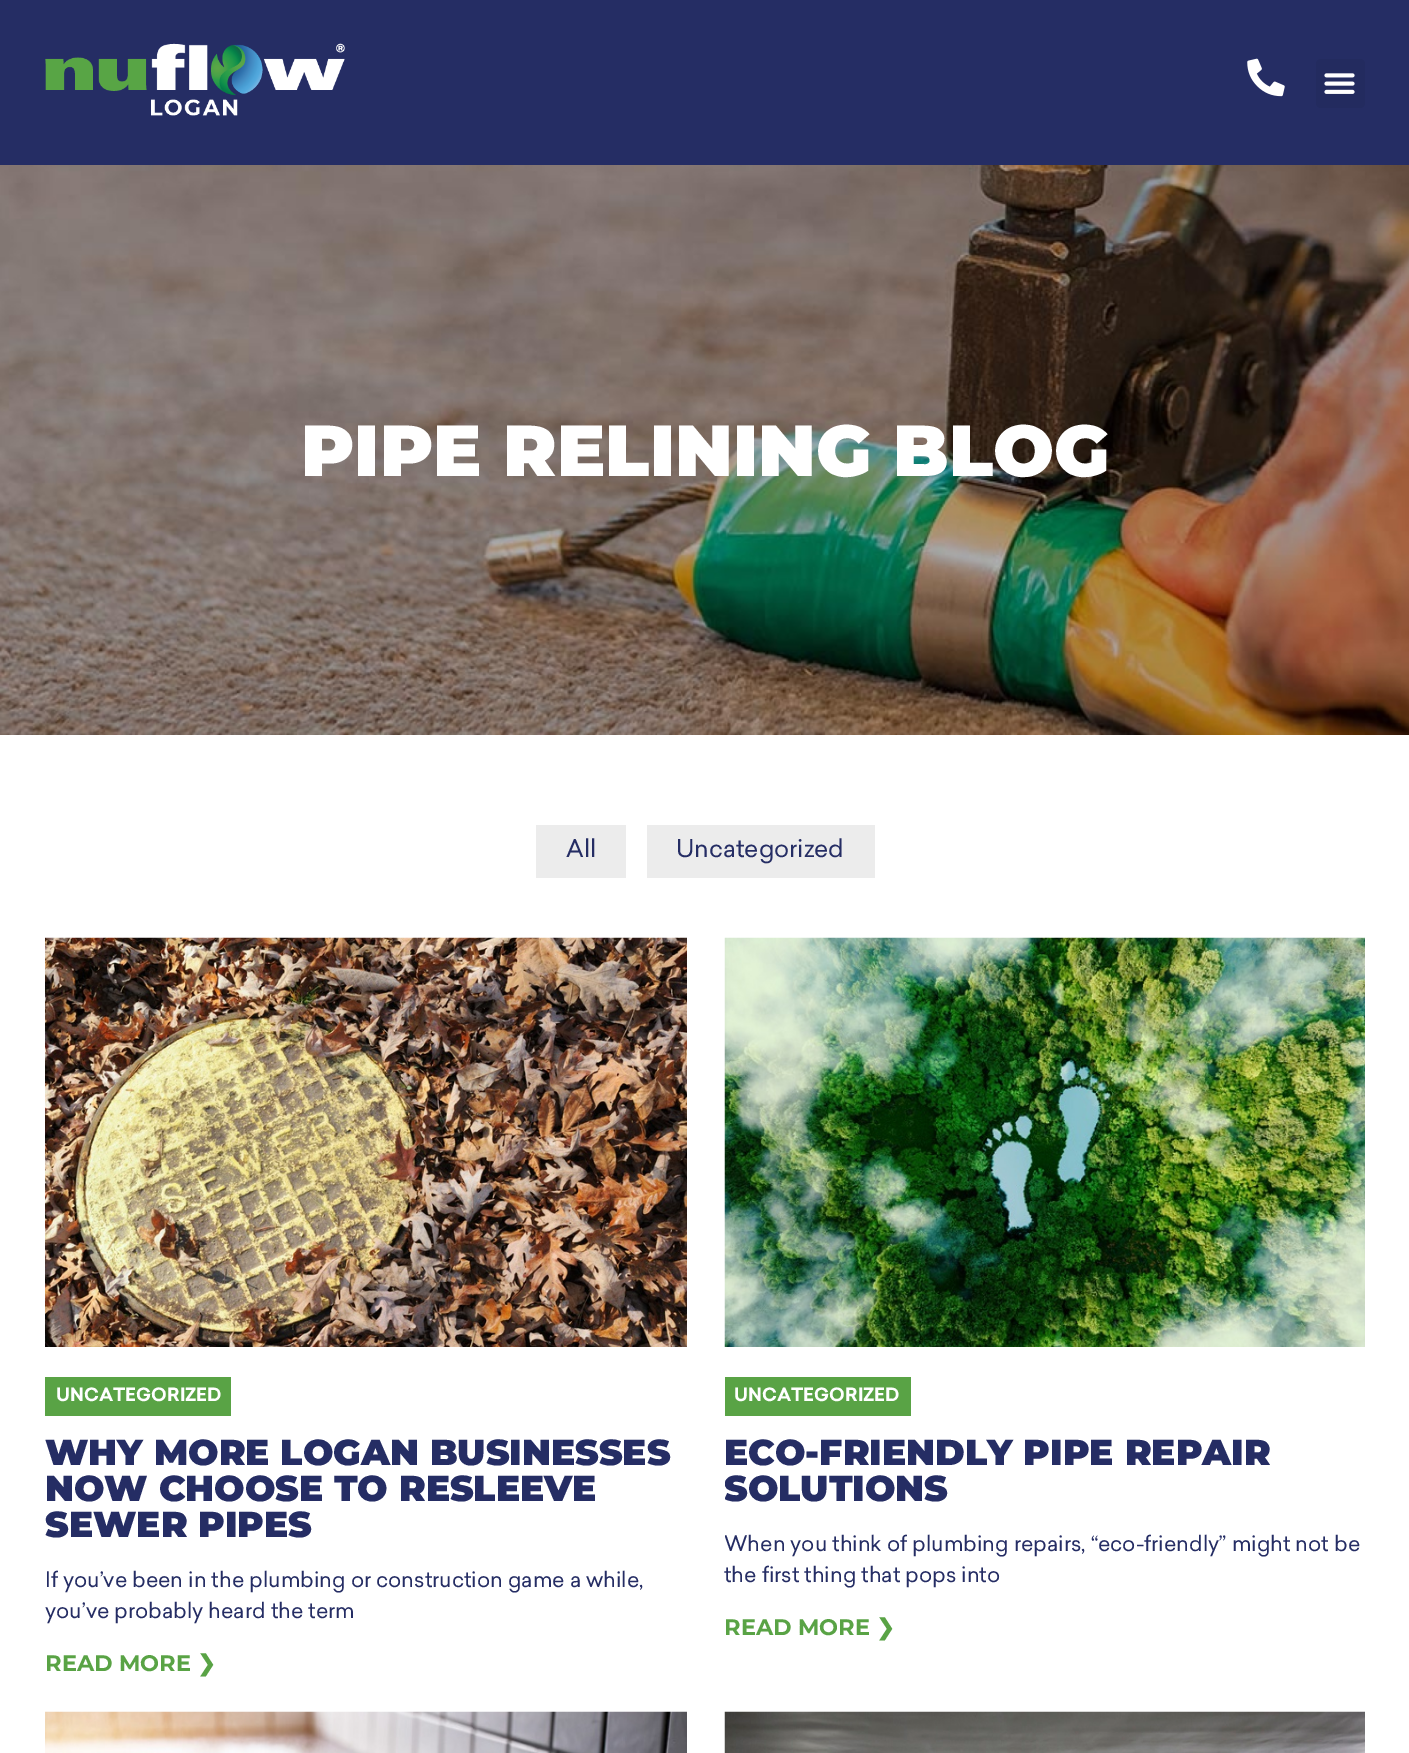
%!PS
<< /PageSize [1409 1753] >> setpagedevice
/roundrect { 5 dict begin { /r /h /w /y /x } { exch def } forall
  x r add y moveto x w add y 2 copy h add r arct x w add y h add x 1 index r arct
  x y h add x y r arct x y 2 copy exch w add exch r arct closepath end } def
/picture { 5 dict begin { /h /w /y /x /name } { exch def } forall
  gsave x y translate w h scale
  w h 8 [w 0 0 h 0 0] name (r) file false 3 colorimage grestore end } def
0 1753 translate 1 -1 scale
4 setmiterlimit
1 setgray
0 0 1409 1753 rectfill
0.145 0.176 0.392 setrgbcolor
0 0 1409 165 rectfill
(img1.rgb) 45 43 300 73 picture
(img2.rgb) 1247 58 38 39 picture
0.137 0.169 0.373 setrgbcolor
1316 59 49 49 5 roundrect fill
(img3.rgb) 1324 73 31 21 picture
(img4.rgb) 0 165 1409 570 picture
/Montserrat-Black [72 0 0 -72 0 0] selectfont
1 setgray
301 476 moveto (PIPE RELINING BLOG) show
0.925 setgray
536 825 90 53 rectfill
/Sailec-Regular [24 0 0 -24 0 0] selectfont
0.145 0.176 0.392 setrgbcolor
566 857 moveto (All) show
0.925 setgray
647 825 228 53 rectfill
0.145 0.176 0.392 setrgbcolor
676 857 moveto (Uncategorized) show
(img5.rgb) 45 937 642 410 picture
0.349 0.639 0.271 setrgbcolor
45 1377 186 39 rectfill
/Sailec-Bold [18 0 0 -18 0 0] selectfont
1 setgray
56 1401 moveto (UNCATEGORIZED) show
/Montserrat-Black [36 0 0 -36 0 0] selectfont
0.145 0.176 0.392 setrgbcolor
45 1465 moveto (WHY MORE LOGAN BUSINESSES) show
45 1501 moveto (NOW CHOOSE TO RESLEEVE) show
45 1537 moveto (SEWER PIPES) show
/Sailec-Regular [21 0 0 -21 0 0] selectfont
45 1587 moveto (If you’ve been in the plumbing or construction game a while,) show
45 1618 moveto (you’ve probably heard the term) show
/Montserrat-Bold [22.5 0 0 -22.5 0 0] selectfont
0.349 0.639 0.271 setrgbcolor
45 1671 moveto (READ MORE) show
/DejaVuSans-Bold [22.5 0 0 -22.5 0 0] selectfont
197 1671 moveto (❯) show
(img6.rgb) 724 937 641 410 picture
725 1377 186 39 rectfill
/Sailec-Bold [18 0 0 -18 0 0] selectfont
1 setgray
734 1401 moveto (UNCATEGORIZED) show
/Montserrat-Black [36 0 0 -36 0 0] selectfont
0.145 0.176 0.392 setrgbcolor
724 1465 moveto (ECO-FRIENDLY PIPE REPAIR) show
gsave
725 938 640 744 rectclip
724 1501 moveto (SOLUTIONS) show
/Sailec-Regular [21 0 0 -21 0 0] selectfont
724 1551 moveto (When you think of plumbing repairs, “eco-friendly” might not be) show
grestore
/Sailec-Regular [21 0 0 -21 0 0] selectfont
724 1582 moveto (the first thing that pops into) show
/Montserrat-Bold [22.5 0 0 -22.5 0 0] selectfont
0.349 0.639 0.271 setrgbcolor
724 1635 moveto (READ MORE) show
/DejaVuSans-Bold [22.5 0 0 -22.5 0 0] selectfont
876 1635 moveto (❯) show
(img7.rgb) 45 1711 642 42 picture
(img8.rgb) 724 1711 641 42 picture
showpage
